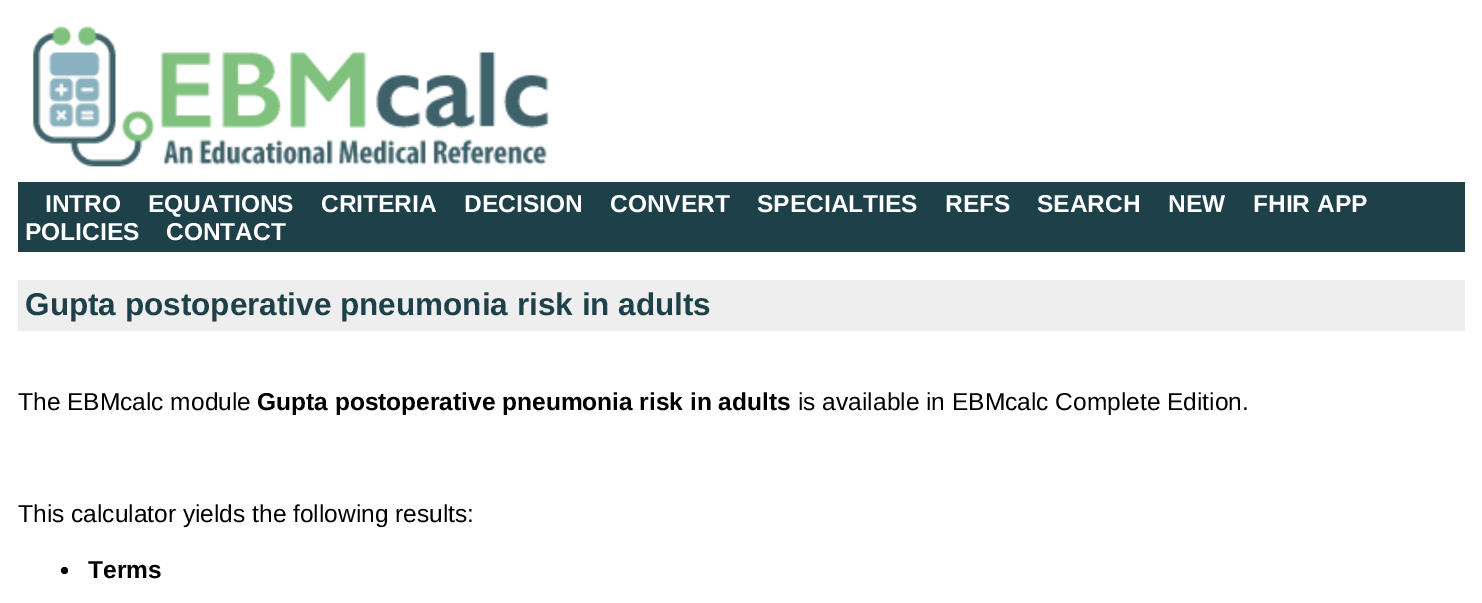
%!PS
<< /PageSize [1482 603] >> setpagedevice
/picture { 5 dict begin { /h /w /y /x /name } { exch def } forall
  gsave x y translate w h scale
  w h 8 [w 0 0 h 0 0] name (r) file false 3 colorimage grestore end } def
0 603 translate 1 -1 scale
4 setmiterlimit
1 setgray
0 0 1482 603 rectfill
(img1.rgb) 32 26 517 141 picture
0.118 0.255 0.286 setrgbcolor
18 182 1447 70 rectfill
/LiberationSans-Bold [24.5 0 0 -24.5 0 0] selectfont
1 setgray
45 212 moveto (INTRO) show
148 212 moveto (EQUATIONS) show
321 212 moveto (CRITERIA) show
464 212 moveto (DECISION) show
610 212 moveto (CONVERT) show
757 212 moveto (SPECIALTIES) show
945 212 moveto (REFS) show
1037 212 moveto (SEARCH) show
1168 212 moveto (NEW) show
1253 212 moveto (FHIR APP) show
25 240 moveto (POLICIES) show
166 240 moveto (CONTACT) show
0.933 setgray
18 280 1447 51 rectfill
/LiberationSans-Bold [31.5 0 0 -31.5 0 0] selectfont
0.118 0.255 0.286 setrgbcolor
25 315 moveto (Gupta postoperative pneumonia risk in adults) show
/LiberationSans-Regular [24.5 0 0 -24.5 0 0] selectfont
0 setgray
18 410 moveto (The EBMcalc module) show
/LiberationSans-Bold [24.5 0 0 -24.5 0 0] selectfont
257 410 moveto (Gupta postoperative pneumonia risk in adults) show
/LiberationSans-Regular [24.5 0 0 -24.5 0 0] selectfont
798 410 moveto (is available in EBMcalc Complete Edition.) show
18 522 moveto (This calculator yields the following results:) show
newpath 64.5 570.5 3.5 0 360 arc closepath fill
/LiberationSans-Bold [24.5 0 0 -24.5 0 0] selectfont
88 578 moveto (Terms) show
showpage
